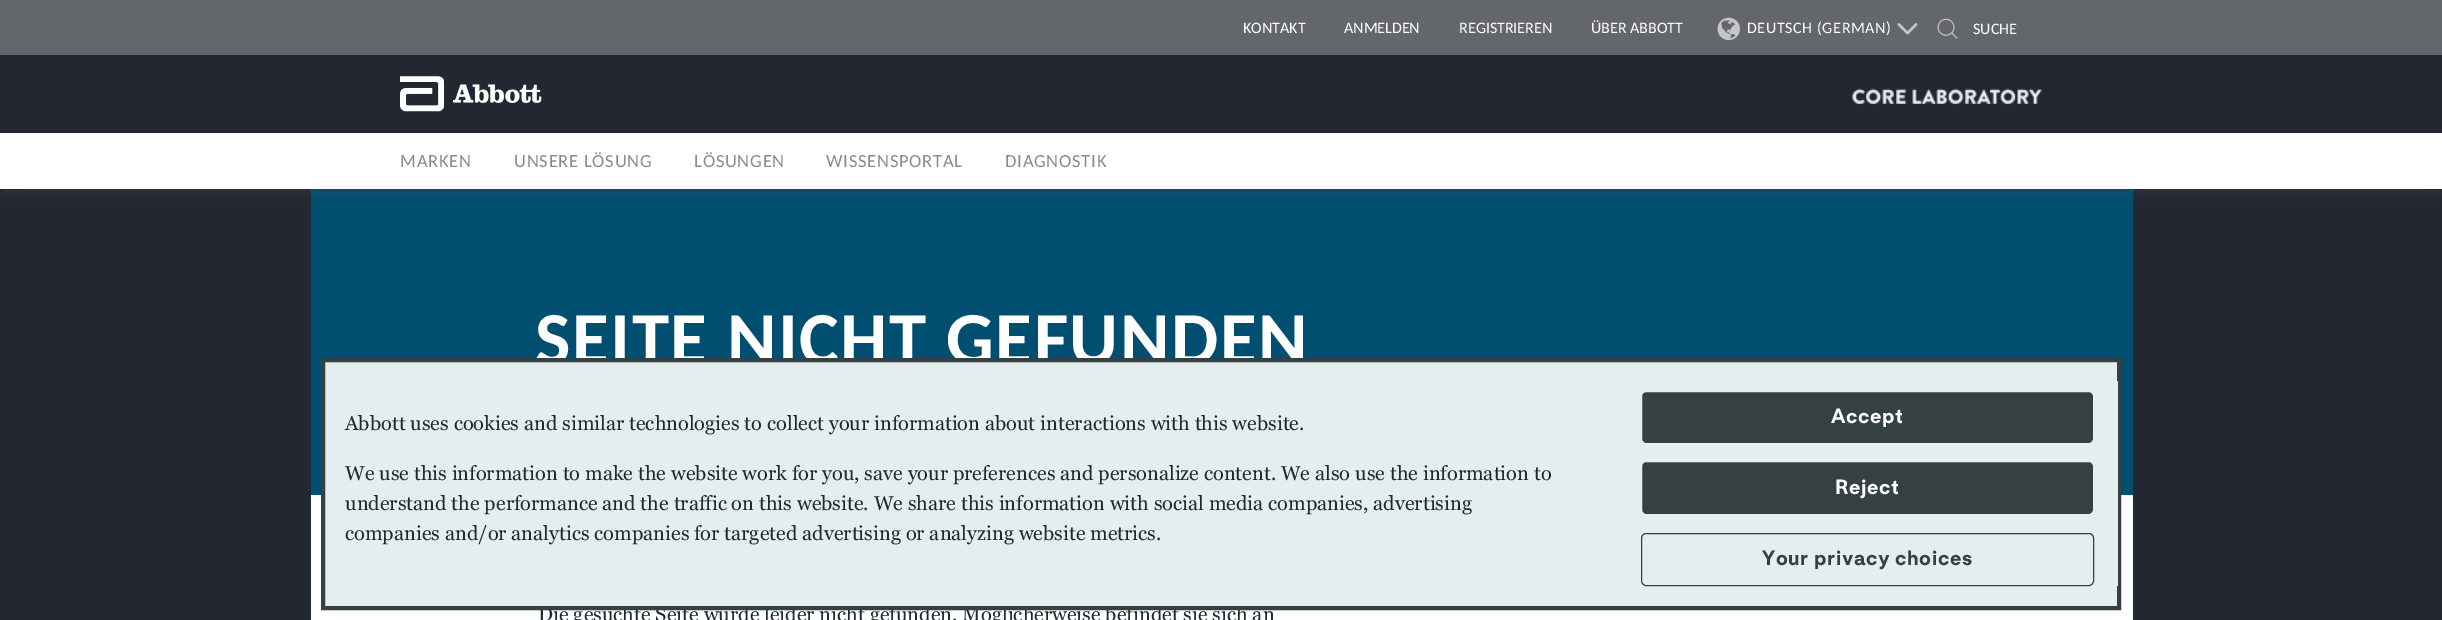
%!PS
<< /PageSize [2442 620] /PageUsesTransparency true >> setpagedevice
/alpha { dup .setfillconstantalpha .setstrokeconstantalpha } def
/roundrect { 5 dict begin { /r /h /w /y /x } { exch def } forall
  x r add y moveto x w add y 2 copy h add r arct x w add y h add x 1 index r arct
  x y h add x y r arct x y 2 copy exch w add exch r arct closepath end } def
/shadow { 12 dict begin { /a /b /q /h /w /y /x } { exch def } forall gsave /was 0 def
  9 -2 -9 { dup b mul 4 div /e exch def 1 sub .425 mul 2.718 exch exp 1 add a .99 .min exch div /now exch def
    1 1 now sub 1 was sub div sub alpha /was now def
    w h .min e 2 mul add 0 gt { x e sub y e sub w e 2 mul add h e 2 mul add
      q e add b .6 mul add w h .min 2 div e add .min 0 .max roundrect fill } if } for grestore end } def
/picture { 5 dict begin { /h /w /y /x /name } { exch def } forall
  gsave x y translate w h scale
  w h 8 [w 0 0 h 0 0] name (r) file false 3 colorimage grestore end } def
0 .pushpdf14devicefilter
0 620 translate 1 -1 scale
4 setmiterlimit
0.133 0.153 0.192 setrgbcolor
0 0 2442 620 rectfill
0.388 0.4 0.416 setrgbcolor
0 0 2442 55 rectfill
/Carlito-Regular [16 0 0 -16 0 0] selectfont
1 setgray
1243 33 moveto (KONTAKT) show
1344 33 moveto (ANMELDEN) show
1459 33 moveto (REGISTRIEREN) show
1591 33 moveto (ÜBER ABBOTT) show
(img1.rgb) 1717 17 23 24 picture
1747 33 moveto 0.6 0 (DEUTSCH \(GERMAN\)) ashow
(img2.rgb) 1897 23 21 12 picture
(img3.rgb) 1937 18 21 21 picture
1973 34 moveto (SUCHE) show
0 0.31 0.443 setrgbcolor
311 189 1822 306 rectfill
0.553 0.553 0.58 setrgbcolor
3 63 2437 128 0 5 0.28 shadow
0 setgray
0 58 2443 133 0 2.5 0.24 shadow
0.133 0.153 0.192 setrgbcolor
0 57 2442 76 rectfill
(img4.rgb) 400 76 142 36 picture
(img5.rgb) 1852 88 190 17 picture
1 setgray
0 133 2442 56 rectfill
/Carlito-Regular [18.5 0 0 -18.5 0 0] selectfont
0.533 0.545 0.553 setrgbcolor
400 167 moveto 0.75 0 (MARKEN) ashow
514 167 moveto 0.75 0 (UNSERE LÖSUNG) ashow
694 167 moveto 0.75 0 (LÖSUNGEN) ashow
826 167 moveto 0.75 0 (WISSENSPORTAL) ashow
1005 167 moveto 0.75 0 (DIAGNOSTIK) ashow
1 setgray
311 495 1822 125 rectfill
/Carlito-Bold [75 0 0 -75 0 0] selectfont
535 364 moveto 1.5 0 (SEITE NICHT GEFUNDEN) ashow
/Georgia-Regular [20 0 0 -20 0 0] selectfont
0.133 0.153 0.192 setrgbcolor
538 621 moveto (Die gesuchte Seite wurde leider nicht gefunden. Möglicherweise befindet sie sich an) show
0.894 0.933 0.937 setrgbcolor
newpath 323 360 moveto 2119 360 lineto 2119 608 lineto 323 608 lineto closepath gsave fill grestore
0.204 0.251 0.259 setrgbcolor
4 setlinewidth
stroke
0.894 0.933 0.937 setrgbcolor
2117 381 1 205 rectfill
0.133 0.153 0.192 setrgbcolor
345 430 moveto (Abbott uses cookies and similar technologies to collect your information about interactions with this website.) show
345 480 moveto (We use this information to make the website work for you, save your preferences and personalize content. We also use the information to) show
345 510 moveto (understand the performance and the traffic on this website. We share this information with social media companies, advertising) show
345 540 moveto (companies and/or analytics companies for targeted advertising or analyzing website metrics.) show
0.204 0.251 0.259 setrgbcolor
1641.5 391.5 452 52 4.5 roundrect gsave fill grestore
0.933 setgray
1 setlinewidth
stroke
/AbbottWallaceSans-Bold [20 0 0 -20 0 0] selectfont
1 setgray
1831 423 moveto 0.6 0 (Accept) ashow
0.204 0.251 0.259 setrgbcolor
1641.5 461.5 452 53 4.5 roundrect gsave fill grestore
0.933 setgray
stroke
1 setgray
1835 494 moveto 0.6 0 (Reject) ashow
0.204 0.251 0.259 setrgbcolor
1641.5 533.5 452 52 4.5 roundrect stroke
1762 565 moveto 0.6 0 (Your privacy choices) ashow
.poppdf14devicefilter showpage
